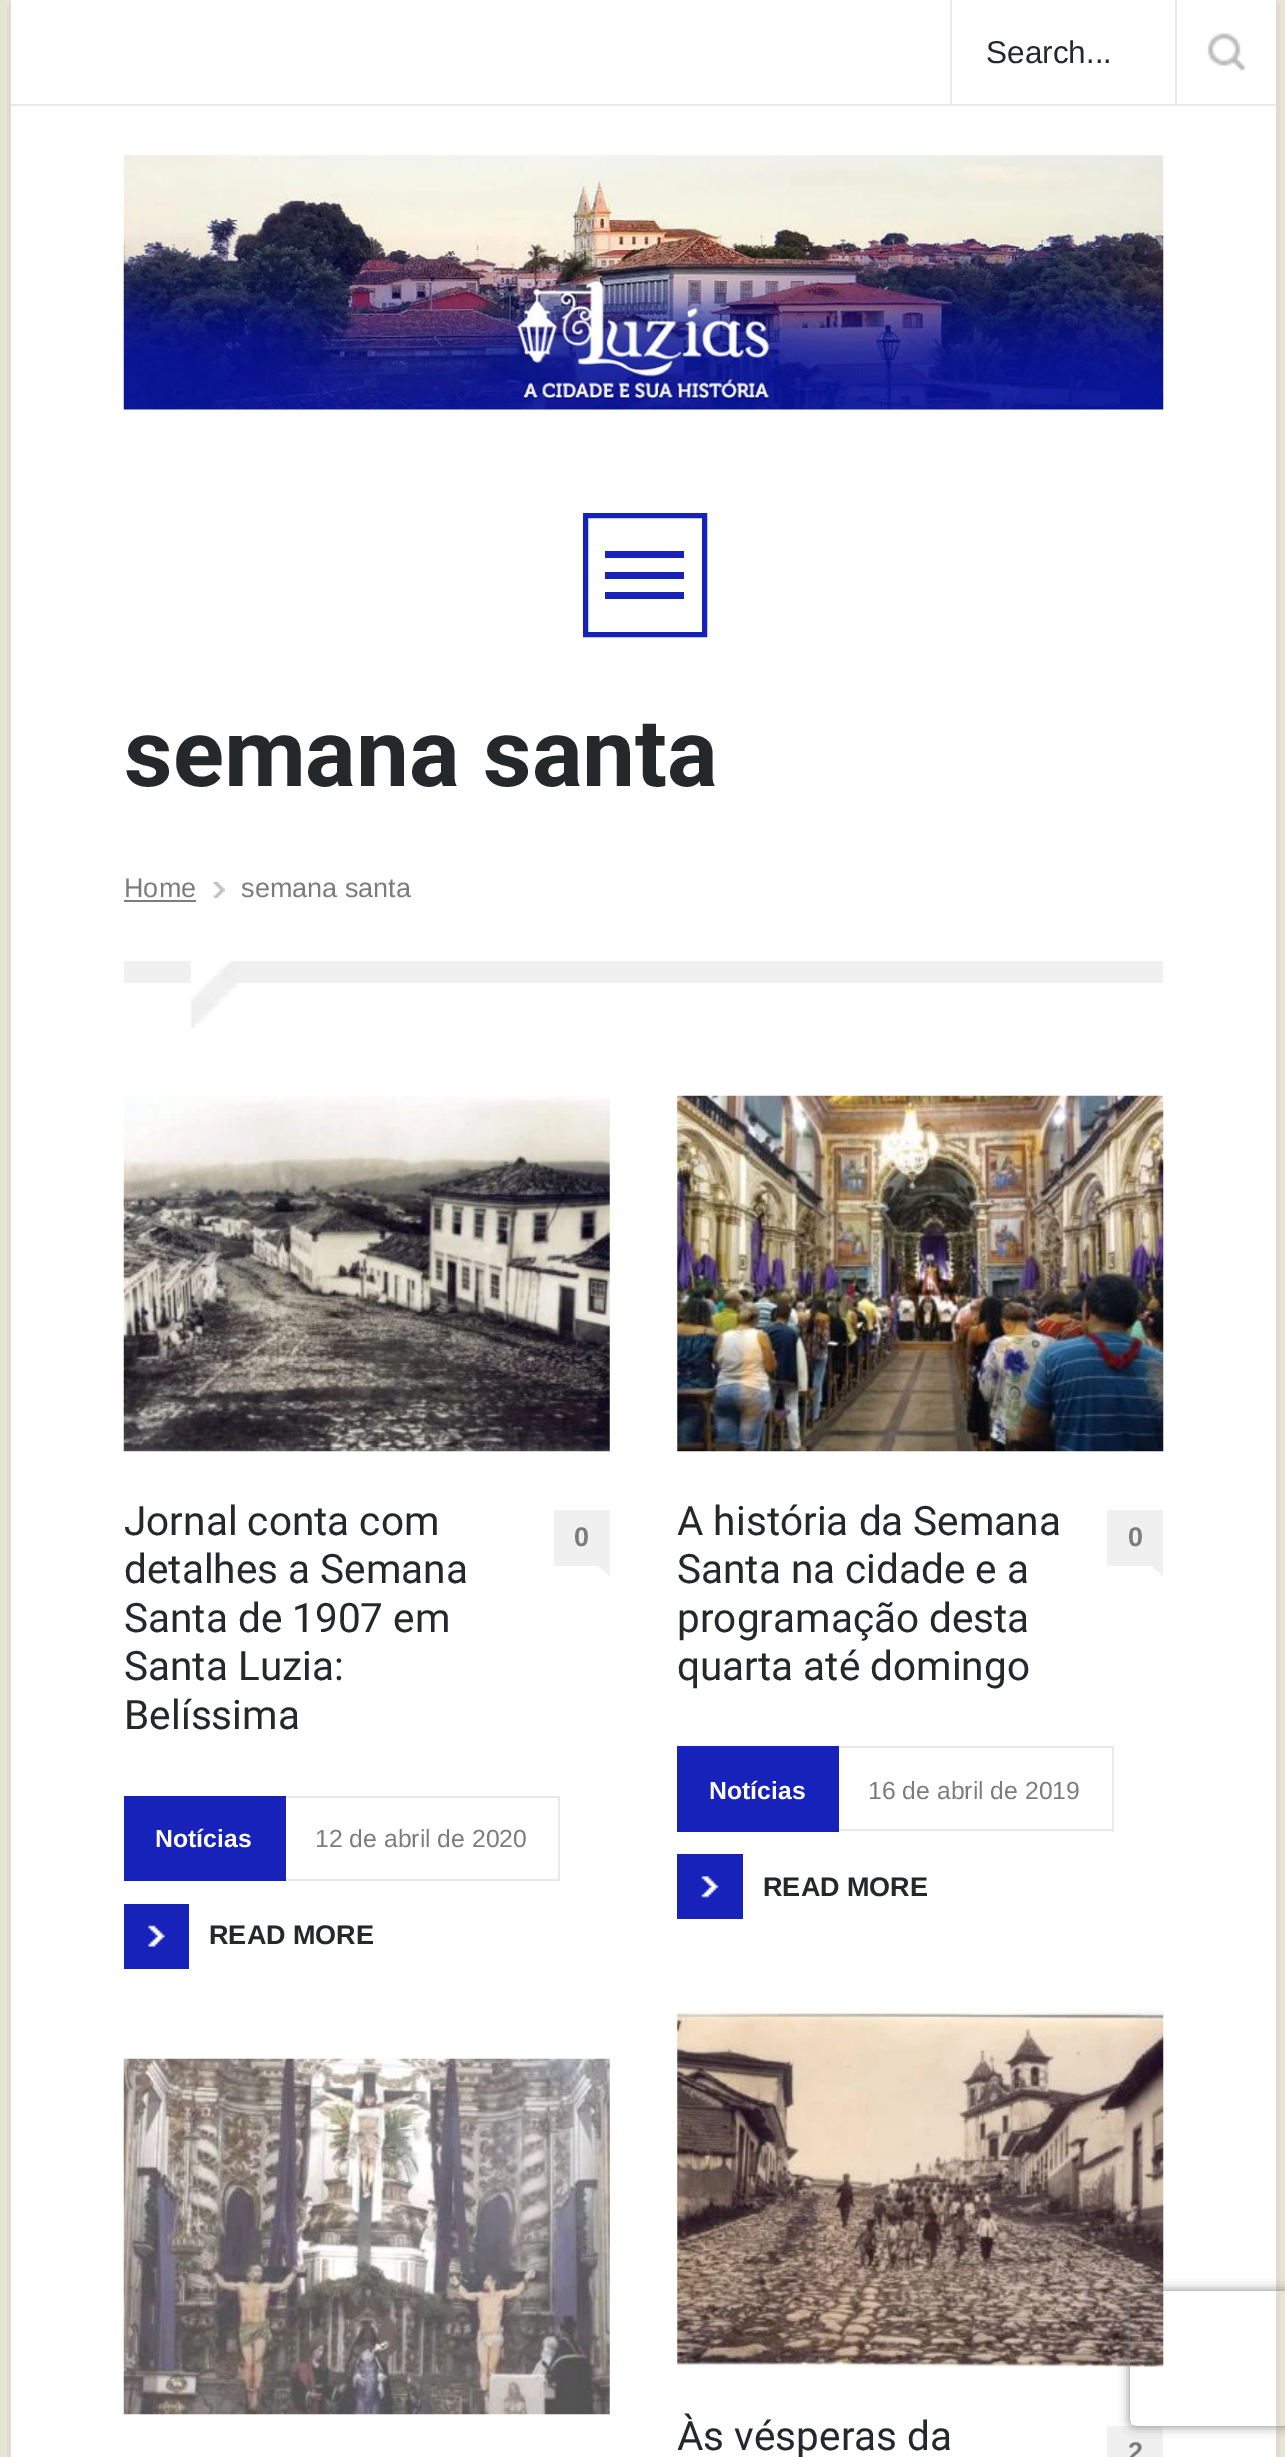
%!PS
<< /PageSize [1285 2457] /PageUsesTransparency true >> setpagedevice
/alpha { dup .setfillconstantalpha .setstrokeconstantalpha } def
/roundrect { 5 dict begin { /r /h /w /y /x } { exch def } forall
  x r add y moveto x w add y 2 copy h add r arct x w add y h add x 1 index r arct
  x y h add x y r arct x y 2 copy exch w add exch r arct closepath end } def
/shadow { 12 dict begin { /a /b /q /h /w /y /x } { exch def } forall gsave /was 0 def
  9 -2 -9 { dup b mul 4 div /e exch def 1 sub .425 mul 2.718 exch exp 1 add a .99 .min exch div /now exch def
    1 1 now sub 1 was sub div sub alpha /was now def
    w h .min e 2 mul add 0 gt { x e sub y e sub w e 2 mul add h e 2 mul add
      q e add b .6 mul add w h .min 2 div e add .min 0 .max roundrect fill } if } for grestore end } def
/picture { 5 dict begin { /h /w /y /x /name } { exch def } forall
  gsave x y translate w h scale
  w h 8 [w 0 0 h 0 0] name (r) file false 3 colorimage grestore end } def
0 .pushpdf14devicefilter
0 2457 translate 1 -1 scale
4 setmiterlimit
0.953 0.941 0.878 setrgbcolor
0 0 1285 2457 rectfill
0 setgray
11 0 1265 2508 0 17 0.15 shadow
1 setgray
11 0 1265 2457 rectfill
0.914 setgray
11 104 1265 2 rectfill
950 0 2 104 rectfill
1175 0 2 104 rectfill
/LiberationSans-Regular [31.5 0 0 -31.5 0 0] selectfont
0.145 0.157 0.165 setrgbcolor
986 63 moveto (Search...) show
(img1.rgb) 1207 33 38 38 picture
(img2.rgb) 123 155 1041 255 picture
0.09 0.133 0.729 setrgbcolor
5 setlinewidth
585.5 515.5 119 119 rectstroke
605 551 79 7 rectfill
605 572 79 7 rectfill
605 592 79 7 rectfill
/Roboto-Bold [94.5 0 0 -94.5 0 0] selectfont
0.145 0.157 0.165 setrgbcolor
124 786 moveto (semana santa) show
/LiberationSans-Regular [27 0 0 -27 0 0] selectfont
0.486 setgray
124 897 moveto (Home) show
124 900 72 2 rectfill
(img3.rgb) 213 882 12 16 picture
241 897 moveto (semana santa) show
0.941 setgray
124 961 67 22 rectfill
(img4.rgb) 191 960 46 69 picture
236 961 927 22 rectfill
(img5.rgb) 123 1096 487 356 picture
/Roboto-Regular [40.5 0 0 -40.5 0 0] selectfont
0.145 0.157 0.165 setrgbcolor
124 1535 moveto (Jornal conta com) show
124 1583 moveto (detalhes a Semana) show
124 1632 moveto (Santa de 1907 em) show
124 1680 moveto (Santa Luzia:) show
124 1729 moveto (Belíssima) show
0.941 setgray
554 1510 56 56 rectfill
/LiberationSans-Bold [27 0 0 -27 0 0] selectfont
0.486 setgray
574 1546 moveto (0) show
0.941 setgray
newpath 598.5 1566 moveto 610 1566 lineto 610 1577 lineto closepath fill
0.09 0.133 0.729 setrgbcolor
124 1796 162 85 rectfill
/LiberationSans-Bold [24.75 0 0 -24.75 0 0] selectfont
1 setgray
155 1847 moveto (Notícias) show
0.914 setgray
286 1796 274 2 rectfill
558 1796 2 85 rectfill
286 1879 274 2 rectfill
/LiberationSans-Regular [24.75 0 0 -24.75 0 0] selectfont
0.486 setgray
315 1847 moveto (12 de abril de 2020) show
0.09 0.133 0.729 setrgbcolor
124 1904 65 65 rectfill
(img6.rgb) 148 1925 17 22 picture
/LiberationSans-Bold [27 0 0 -27 0 0] selectfont
0.145 0.157 0.165 setrgbcolor
209 1944 moveto (READ MORE) show
(img7.rgb) 123 2058 487 357 picture
(img8.rgb) 677 1095 487 357 picture
/Roboto-Regular [40.5 0 0 -40.5 0 0] selectfont
677 1535 moveto (A história da Semana) show
677 1583 moveto (Santa na cidade e a) show
677 1632 moveto (programação desta) show
677 1680 moveto (quarta até domingo) show
0.941 setgray
1107 1510 56 56 rectfill
/LiberationSans-Bold [27 0 0 -27 0 0] selectfont
0.486 setgray
1128 1546 moveto (0) show
0.941 setgray
newpath 1152 1566 moveto 1163 1566 lineto 1163 1577 lineto closepath fill
0.09 0.133 0.729 setrgbcolor
677 1746 162 86 rectfill
/LiberationSans-Bold [24.75 0 0 -24.75 0 0] selectfont
1 setgray
709 1799 moveto (Notícias) show
0.914 setgray
839 1746 275 2 rectfill
1112 1746 2 86 rectfill
839 1829 275 2 rectfill
/LiberationSans-Regular [24.75 0 0 -24.75 0 0] selectfont
0.486 setgray
868 1799 moveto (16 de abril de 2019) show
0.09 0.133 0.729 setrgbcolor
677 1854 66 65 rectfill
(img9.rgb) 701 1876 18 22 picture
/LiberationSans-Bold [27 0 0 -27 0 0] selectfont
0.145 0.157 0.165 setrgbcolor
763 1896 moveto (READ MORE) show
(img10.rgb) 677 2009 487 358 picture
/Roboto-Regular [40.5 0 0 -40.5 0 0] selectfont
677 2450 moveto (Às vésperas da) show
0.941 setgray
1107 2426 56 31 rectfill
/LiberationSans-Bold [27 0 0 -27 0 0] selectfont
0.486 setgray
1128 2461 moveto (2) show
gsave
newpath 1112 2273 moveto 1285 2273 lineto 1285 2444 lineto 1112 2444 lineto closepath 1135 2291 moveto 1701 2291 lineto 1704 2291 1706 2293 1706 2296 curveto 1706 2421 lineto 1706 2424 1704 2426 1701 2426 curveto 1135 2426 lineto 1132 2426 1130 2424 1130 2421 curveto 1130 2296 lineto 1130 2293 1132 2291 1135 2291 curveto closepath eoclip newpath
0.502 setgray
1130 2291 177 135 5 5.5 1 shadow
grestore
.poppdf14devicefilter showpage
